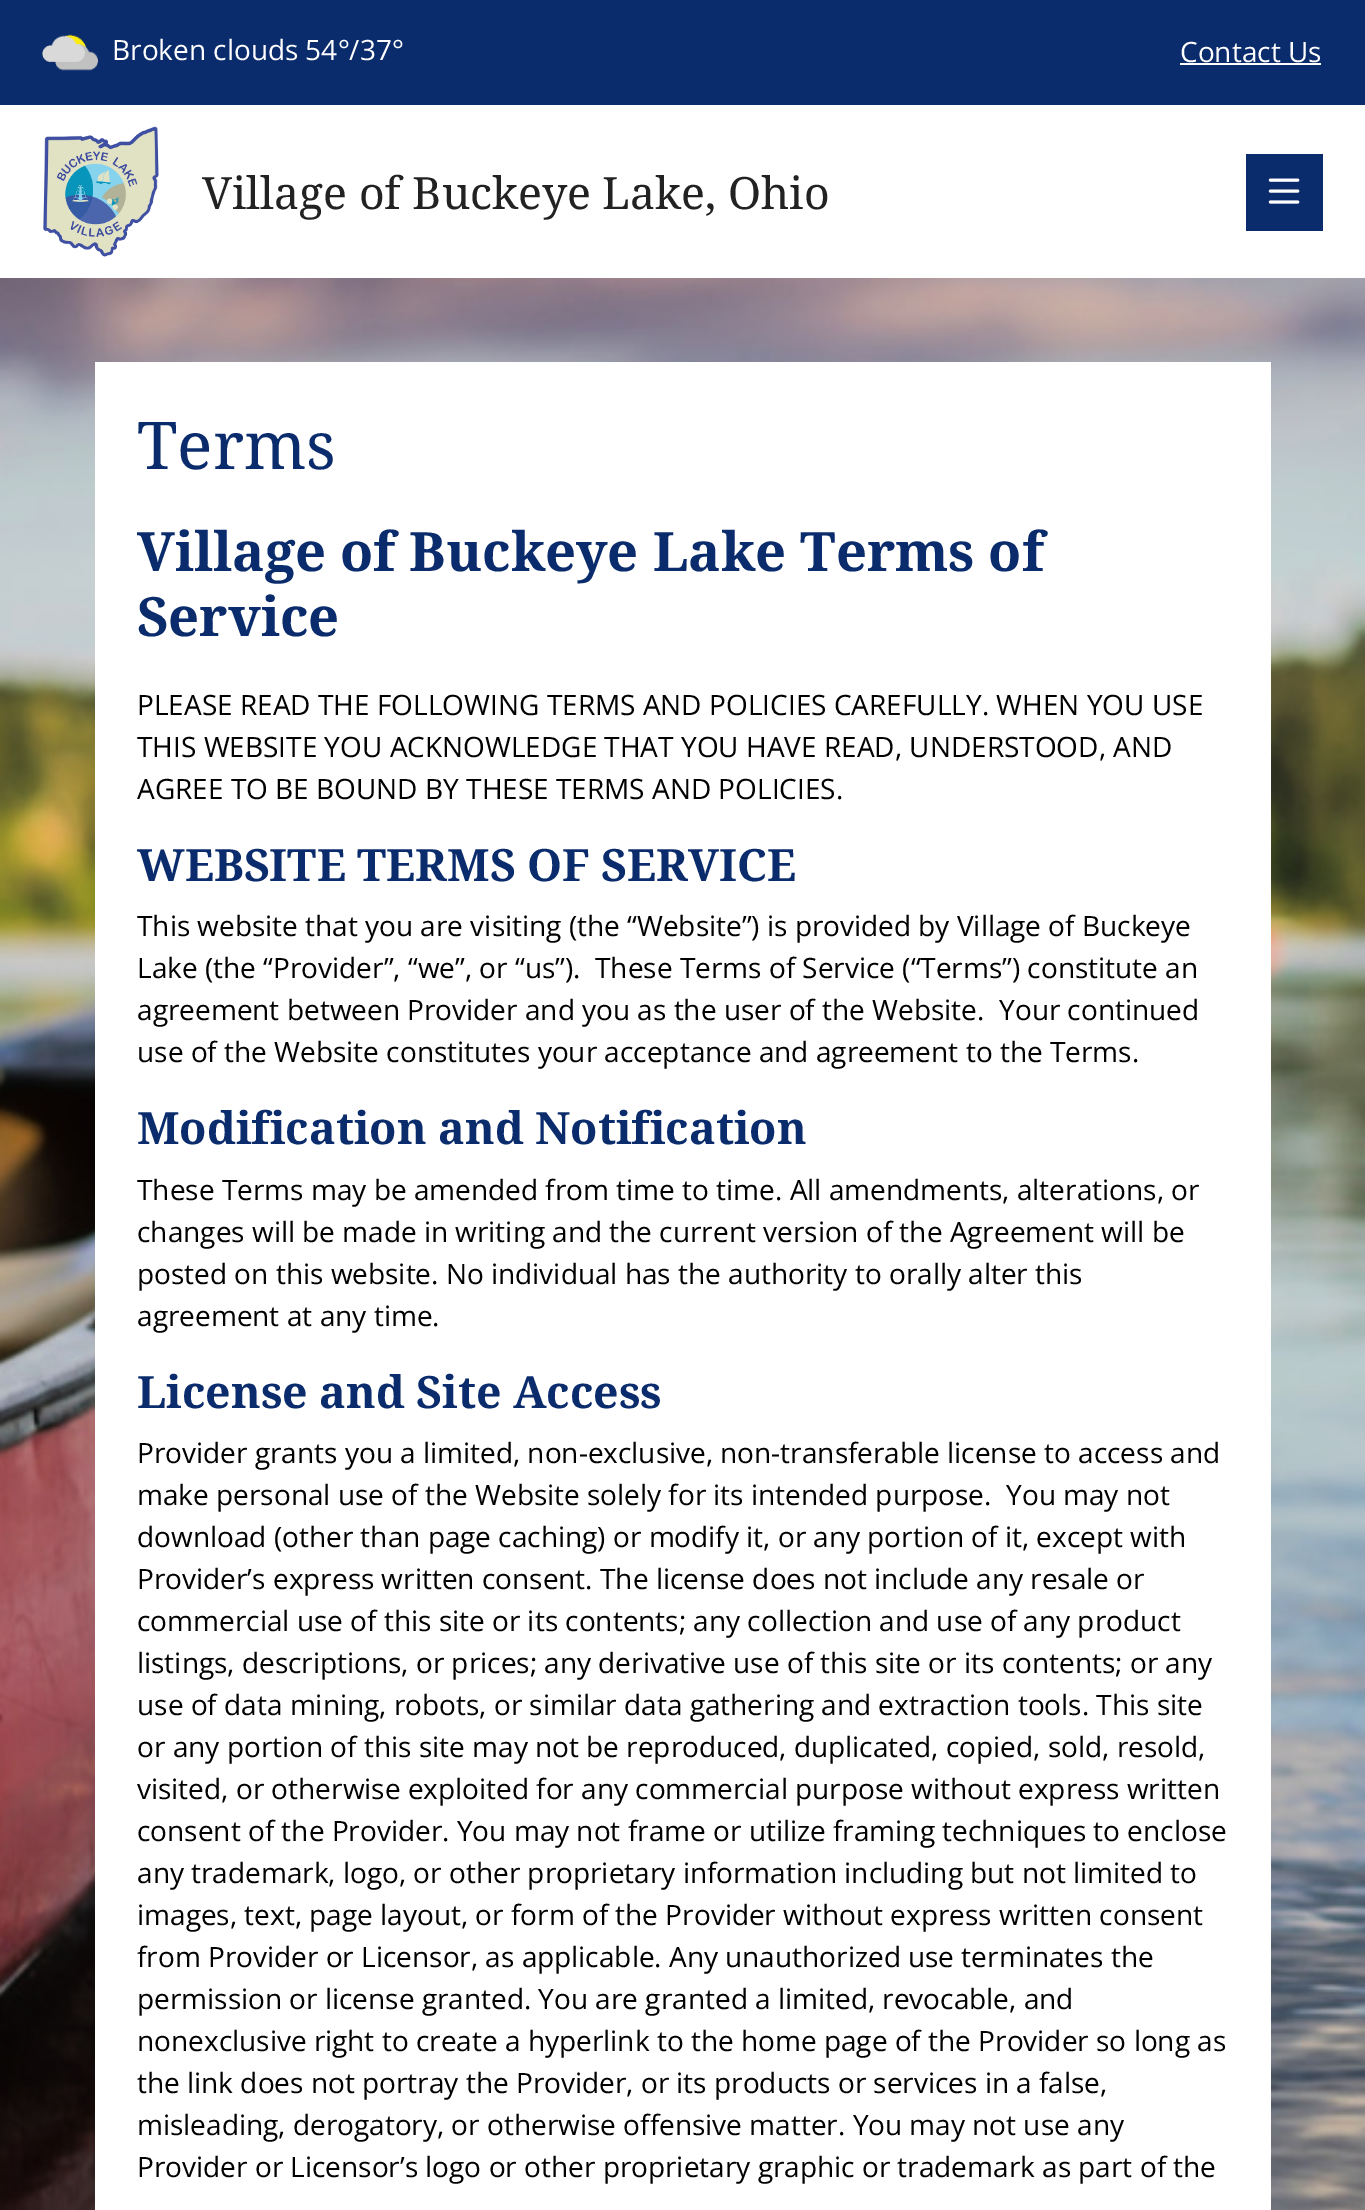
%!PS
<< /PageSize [1365 2210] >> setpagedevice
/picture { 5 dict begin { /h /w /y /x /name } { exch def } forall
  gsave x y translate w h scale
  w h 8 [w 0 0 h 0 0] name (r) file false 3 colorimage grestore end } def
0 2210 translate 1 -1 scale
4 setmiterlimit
1 setgray
0 0 1365 2210 rectfill
(img1.rgb) 0 278 1365 1932 picture
0.043 0.173 0.424 setrgbcolor
0 0 1365 105 rectfill
(img2.rgb) 42 34 56 37 picture
/OpenSans-Regular [28 0 0 -28 0 0] selectfont
1 setgray
112 60 moveto (Broken clouds 54°/37°) show
1180 62 moveto (Contact Us) show
1180 63 141 2 rectfill
(img3.rgb) 43 126 116 131 picture
/NotoSerif-Regular [44.6 0 0 -44.6 0 0] selectfont
0.133 setgray
202 209 moveto (Village of Buckeye Lake, Ohio) show
0.043 0.173 0.424 setrgbcolor
1246 154 77 77 rectfill
(img4.rgb) 1268 178 32 26 picture
1 setgray
95 362 1176 1848 rectfill
/NotoSerif-Regular [66 0 0 -66 0 0] selectfont
0.043 0.173 0.424 setrgbcolor
137 469 moveto (Terms) show
/NotoSerif-Bold [54.2 0 0 -54.2 0 0] selectfont
137 571 moveto (Village of Buckeye Lake Terms of) show
137 636 moveto (Service) show
/OpenSans-Regular [28 0 0 -28 0 0] selectfont
0 setgray
137 715 moveto (PLEASE READ THE FOLLOWING TERMS AND POLICIES CAREFULLY. WHEN YOU USE) show
137 757 moveto (THIS WEBSITE YOU ACKNOWLEDGE THAT YOU HAVE READ, UNDERSTOOD, AND) show
137 799 moveto (AGREE TO BE BOUND BY THESE TERMS AND POLICIES.) show
/NotoSerif-Bold [44.6 0 0 -44.6 0 0] selectfont
0.043 0.173 0.424 setrgbcolor
137 881 moveto (WEBSITE TERMS OF SERVICE) show
/OpenSans-Regular [28 0 0 -28 0 0] selectfont
0 setgray
137 936 moveto (This website that you are visiting \(the “Website”\) is provided by Village of Buckeye) show
137 978 moveto (Lake \(the “Provider”, “we”, or “us”\).  These Terms of Service \(“Terms”\) constitute an) show
137 1020 moveto (agreement between Provider and you as the user of the Website.  Your continued) show
137 1062 moveto (use of the Website constitutes your acceptance and agreement to the Terms.) show
/NotoSerif-Bold [44.6 0 0 -44.6 0 0] selectfont
0.043 0.173 0.424 setrgbcolor
137 1144 moveto (Modification and Notification) show
/OpenSans-Regular [28 0 0 -28 0 0] selectfont
0 setgray
137 1200 moveto (These Terms may be amended from time to time. All amendments, alterations, or) show
137 1242 moveto (changes will be made in writing and the current version of the Agreement will be) show
137 1284 moveto (posted on this website. No individual has the authority to orally alter this) show
137 1326 moveto (agreement at any time.) show
/NotoSerif-Bold [44.6 0 0 -44.6 0 0] selectfont
0.043 0.173 0.424 setrgbcolor
137 1408 moveto (License and Site Access) show
/OpenSans-Regular [28 0 0 -28 0 0] selectfont
0 setgray
137 1463 moveto (Provider grants you a limited, non-exclusive, non-transferable license to access and) show
137 1505 moveto (make personal use of the Website solely for its intended purpose.  You may not) show
137 1547 moveto (download \(other than page caching\) or modify it, or any portion of it, except with) show
137 1589 moveto (Provider’s express written consent. The license does not include any resale or) show
137 1631 moveto (commercial use of this site or its contents; any collection and use of any product) show
137 1673 moveto (listings, descriptions, or prices; any derivative use of this site or its contents; or any) show
137 1715 moveto (use of data mining, robots, or similar data gathering and extraction tools. This site) show
137 1757 moveto (or any portion of this site may not be reproduced, duplicated, copied, sold, resold,) show
137 1799 moveto (visited, or otherwise exploited for any commercial purpose without express written) show
137 1841 moveto (consent of the Provider. You may not frame or utilize framing techniques to enclose) show
137 1883 moveto (any trademark, logo, or other proprietary information including but not limited to) show
137 1925 moveto (images, text, page layout, or form of the Provider without express written consent) show
137 1967 moveto (from Provider or Licensor, as applicable. Any unauthorized use terminates the) show
137 2009 moveto (permission or license granted. You are granted a limited, revocable, and) show
137 2051 moveto (nonexclusive right to create a hyperlink to the home page of the Provider so long as) show
137 2093 moveto (the link does not portray the Provider, or its products or services in a false,) show
137 2135 moveto (misleading, derogatory, or otherwise offensive matter. You may not use any) show
137 2177 moveto (Provider or Licensor’s logo or other proprietary graphic or trademark as part of the) show
showpage
